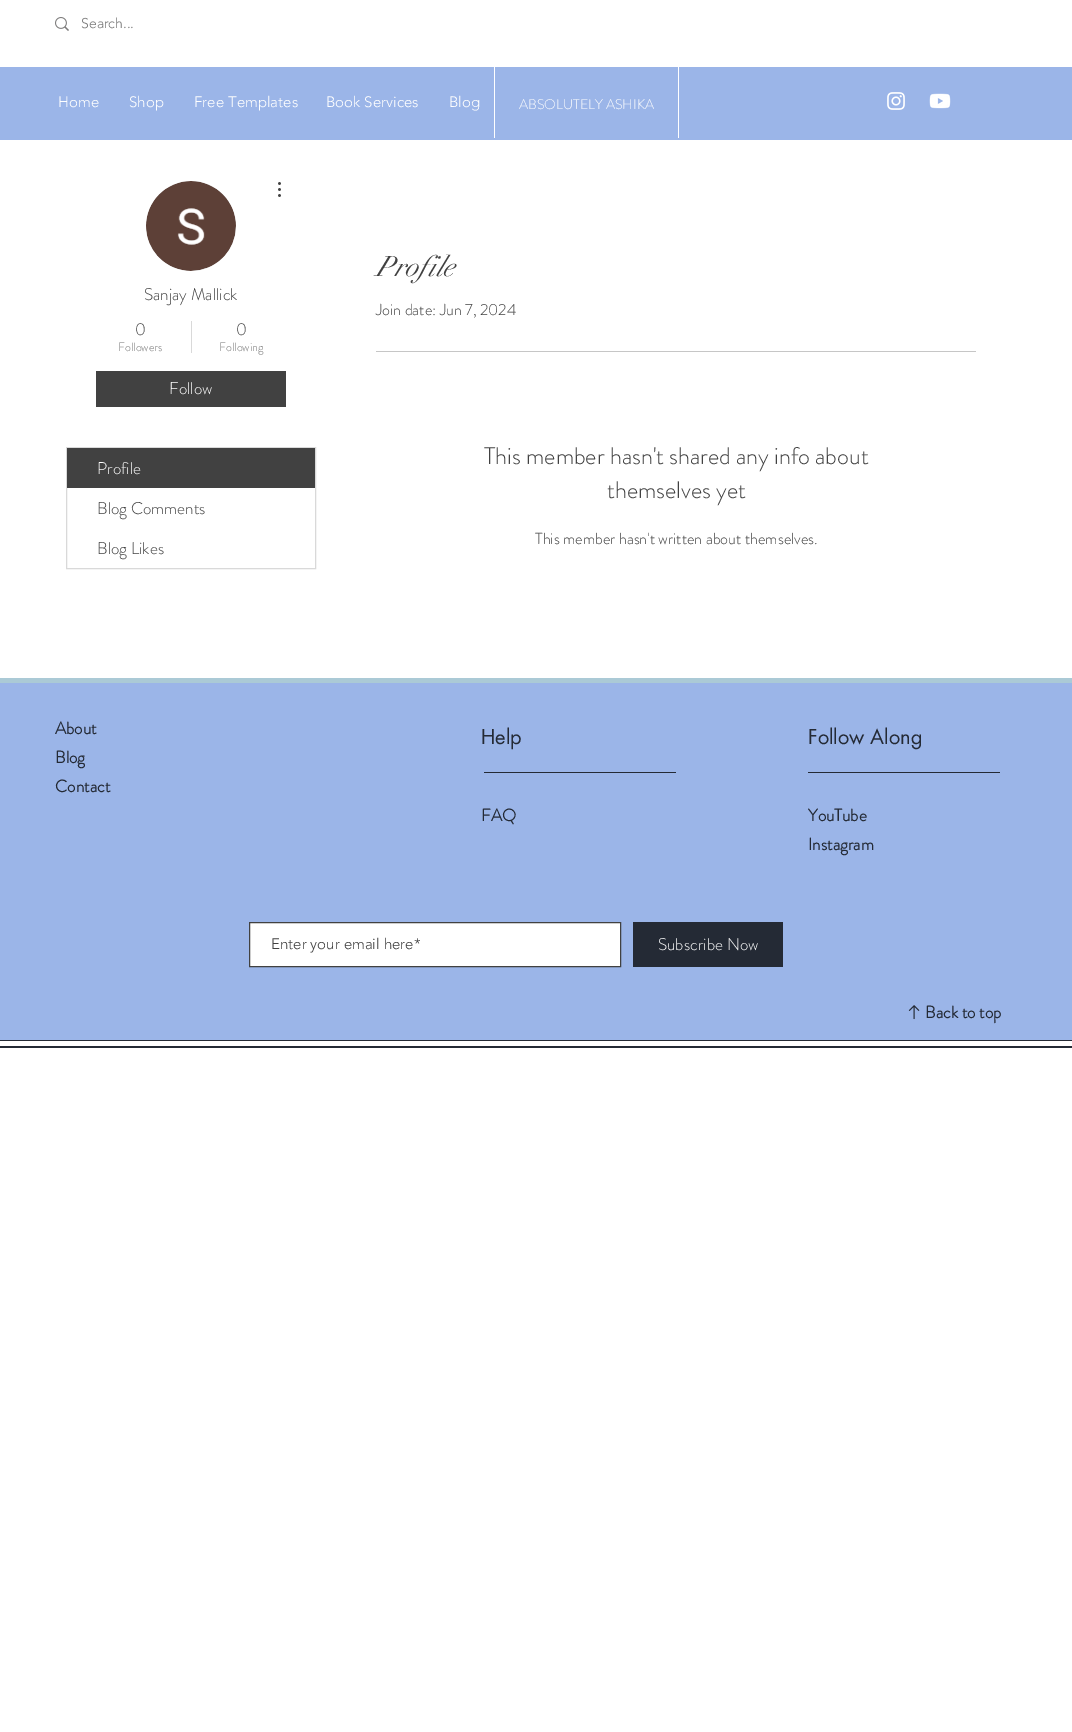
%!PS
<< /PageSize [1072 1732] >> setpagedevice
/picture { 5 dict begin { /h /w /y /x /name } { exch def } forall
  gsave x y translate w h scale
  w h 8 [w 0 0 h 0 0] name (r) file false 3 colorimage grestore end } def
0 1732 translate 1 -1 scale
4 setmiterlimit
1 setgray
0 0 1072 1732 rectfill
(img1.rgb) 55 17 14 14 picture
/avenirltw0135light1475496-Light [14 0 0 -14 0 0] selectfont
0.478 setgray
81 28 moveto (Search...) show
0.608 0.71 0.91 setrgbcolor
0 67 1072 73 rectfill
/avenirltw0135light1475496-Light [15 0 0 -15 0 0] selectfont
1 setgray
58 107 moveto (Home) show
129 107 moveto (Shop) show
194 107 moveto (Free Templates) show
326 107 moveto (Book Services) show
449 107 moveto (Blog) show
494 67 1 71 rectfill
/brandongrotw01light-Light [14 0 0 -14 0 0] selectfont
519 109 moveto (ABSOLUTELY ASHIKA) show
678 66 1 72 rectfill
(img2.rgb) 887 92 18 18 picture
(img3.rgb) 929 93 22 16 picture
0.847 setgray
newpath 191 226 45 0 360 arc closepath fill
(img4.rgb) 146 181 90 90 picture
(img5.rgb) 278 182 3 15 picture
/brandongrotw01light-Light [17 0 0 -17 0 0] selectfont
0.255 setgray
144 300 moveto (Sanjay Mallick) show
135 335 moveto (0) show
/brandongrotw01light-Light [12 0 0 -12 0 0] selectfont
0.478 setgray
118 351 moveto (Followers) show
0.851 setgray
191 321 1 32 rectfill
/brandongrotw01light-Light [17 0 0 -17 0 0] selectfont
0.255 setgray
236 335 moveto (0) show
/brandongrotw01light-Light [12 0 0 -12 0 0] selectfont
0.478 setgray
219 351 moveto (Following) show
0.255 setgray
96 371 190 36 rectfill
/brandongrotw01light-Light [17 0 0 -17 0 0] selectfont
1 setgray
169 394 moveto (Follow) show
0.851 setgray
66.5 447.5 249 121 rectstroke
0.255 setgray
67 448 248 40 rectfill
1 setgray
97 474 moveto (Profile) show
0.255 setgray
97 514 moveto (Blog Comments) show
97 554 moveto (Blog Likes) show
/didot-Italic [28 0 0 -28 0 0] selectfont
376 276 moveto (Profile) show
/brandongrotw01light-Light [16 0 0 -16 0 0] selectfont
376 315 moveto (Join date: Jun 7, 2024) show
0.776 setgray
376 351 600 1 rectfill
/brandongrotw01light-Light [24 0 0 -24 0 0] selectfont
0.255 setgray
484 464 moveto (This member hasn't shared any info about) show
607 498 moveto (themselves yet) show
/brandongrotw01light-Light [16 0 0 -16 0 0] selectfont
535 544 moveto (This member hasn't written about themselves.) show
0.671 0.792 0.839 setrgbcolor
0 678 1072 5 rectfill
0.608 0.71 0.91 setrgbcolor
0 683 1072 357 rectfill
/brandongrotw01light-Bold [17 0 0 -17 0 0] selectfont
0.141 0.165 0.208 setrgbcolor
55 734 moveto (About) show
55 763 moveto (Blog) show
55 792 moveto (Contact) show
/futura-Regular [20 0 0 -20 0 0] selectfont
481 744 moveto (Help) show
808 744 moveto (Follow Along) show
484 772 192 1 rectfill
808 772 192 1 rectfill
/brandongrotw01light-Bold [17 0 0 -17 0 0] selectfont
481 821 moveto (FAQ) show
808 821 moveto (YouTube) show
808 850 moveto (Instagram) show
1 setgray
newpath 249.5 922.5 moveto 620.5 922.5 lineto 620.5 966.5 lineto 249.5 966.5 lineto closepath gsave fill grestore
0.255 setgray
stroke
/avenirltw0135light1475496-Light [15 0 0 -15 0 0] selectfont
271 949 moveto (Enter your email here*) show
0.141 0.165 0.208 setrgbcolor
633 922 150 45 rectfill
/brandongrotw01light-Light [17 0 0 -17 0 0] selectfont
1 setgray
658 950 moveto (Subscribe Now) show
(img6.rgb) 908 1005 12 15 picture
/brandongrotw01light-Bold [17 0 0 -17 0 0] selectfont
0.141 0.165 0.208 setrgbcolor
925 1018 moveto (Back to top) show
0 1040 1072 1 rectfill
0 1046 1072 2 rectfill
showpage
